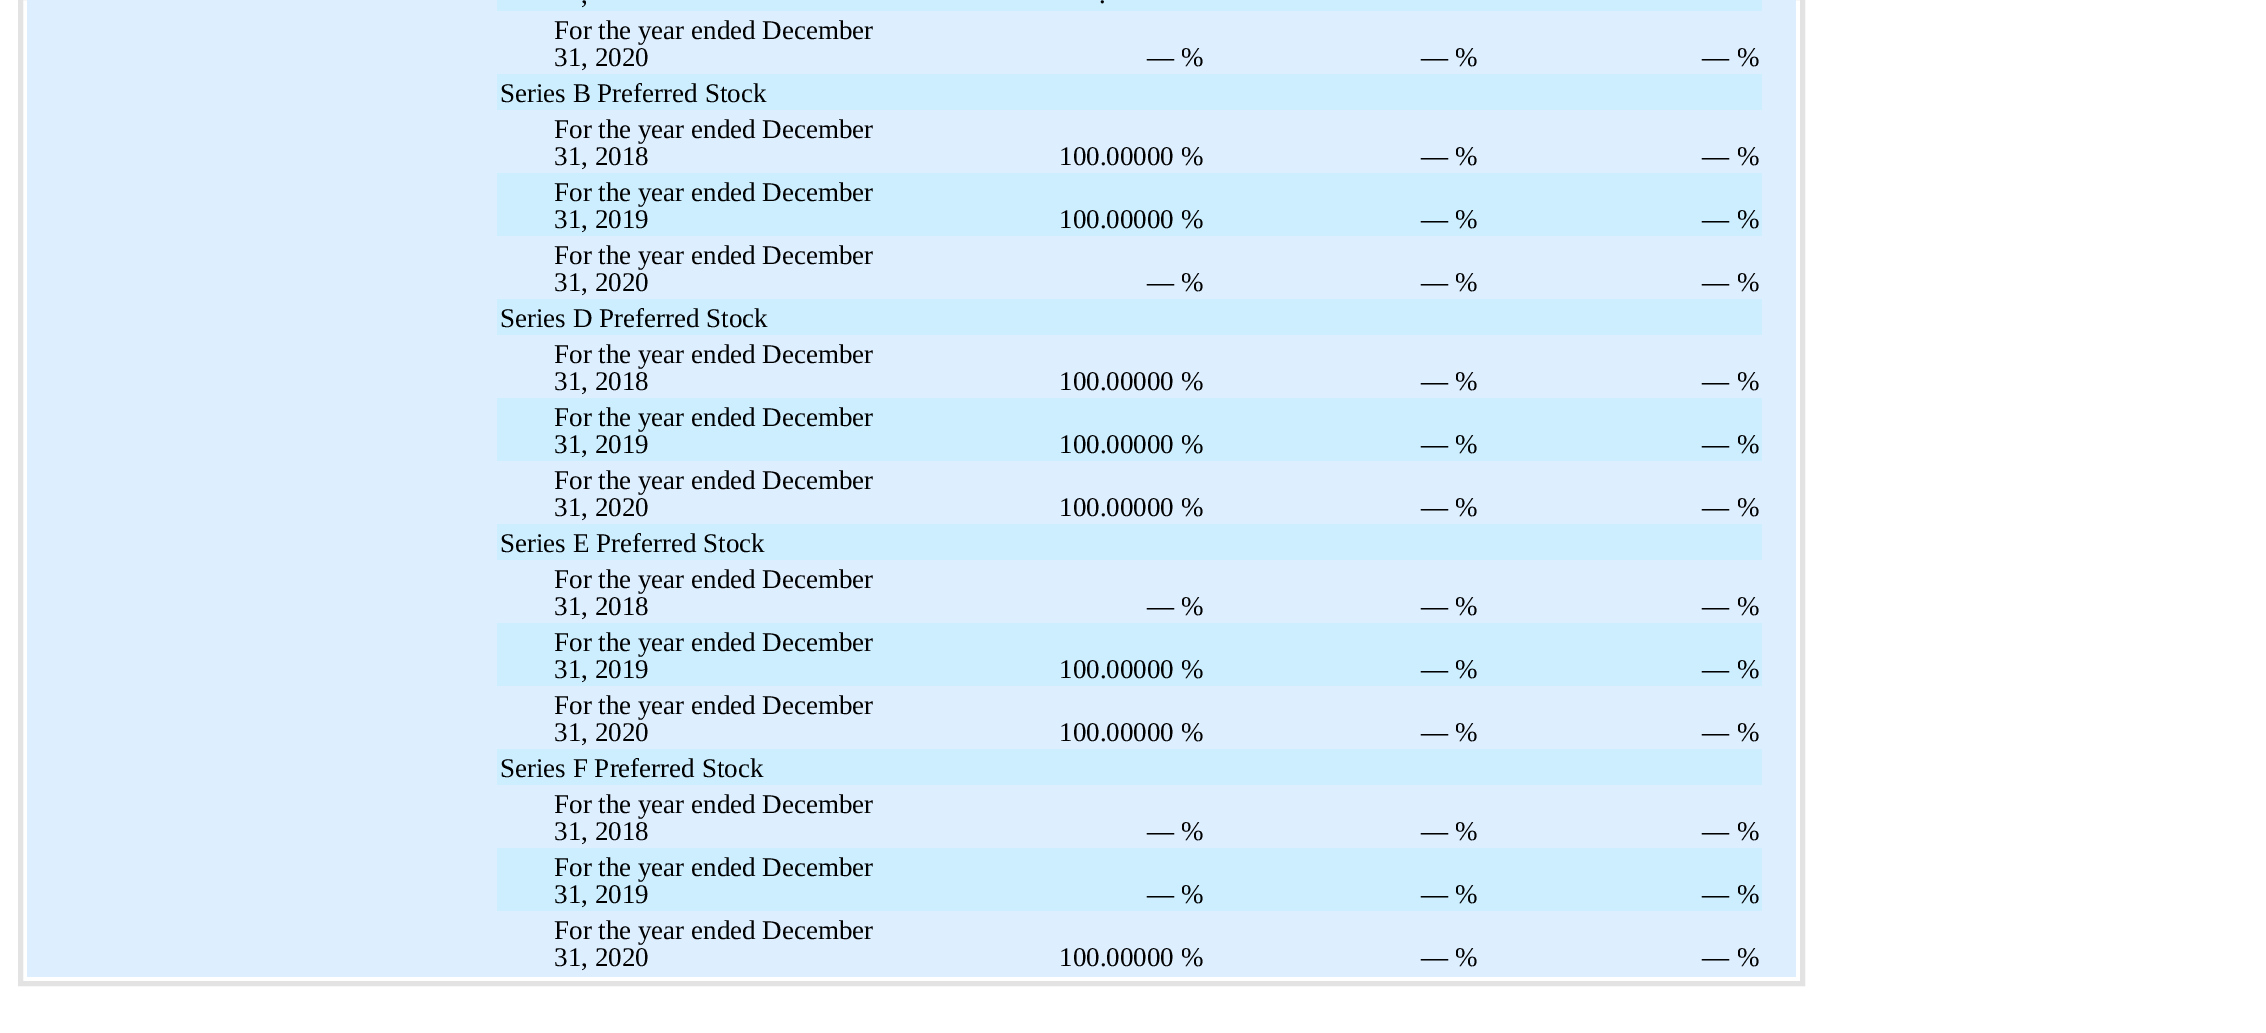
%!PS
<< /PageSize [2266 1033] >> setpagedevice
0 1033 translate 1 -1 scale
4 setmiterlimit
1 setgray
0 0 2266 1033 rectfill
0.89 setgray
5 setlinewidth
20.5 -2.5 1782 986 rectstroke
0.867 0.933 1 setrgbcolor
27 0 1769 977 rectfill
0.8 0.933 1 setrgbcolor
497 0 1265 11 rectfill
/LiberationSerif-Regular [27 0 0 -27 0 0] selectfont
0 setgray
581 3 moveto (,) show
1099 3 moveto (.) show
554 39 moveto (For the year ended December) show
554 66 moveto (31, 2020) show
1147 66 moveto (— %) show
1421 66 moveto (—) show
1455 66 moveto (%) show
1702 66 moveto (—) show
1737 66 moveto (%) show
0.8 0.933 1 setrgbcolor
497 74 1265 36 rectfill
0 setgray
500 102 moveto (Series B Preferred Stock) show
554 138 moveto (For the year ended December) show
554 165 moveto (31, 2018) show
1059 165 moveto (100.00000 %) show
1421 165 moveto (—) show
1455 165 moveto (%) show
1702 165 moveto (—) show
1737 165 moveto (%) show
0.8 0.933 1 setrgbcolor
497 173 1265 63 rectfill
0 setgray
554 201 moveto (For the year ended December) show
554 228 moveto (31, 2019) show
1059 228 moveto (100.00000 %) show
1421 228 moveto (—) show
1455 228 moveto (%) show
1702 228 moveto (—) show
1737 228 moveto (%) show
554 264 moveto (For the year ended December) show
554 291 moveto (31, 2020) show
1147 291 moveto (— %) show
1421 291 moveto (—) show
1455 291 moveto (%) show
1702 291 moveto (—) show
1737 291 moveto (%) show
0.8 0.933 1 setrgbcolor
497 299 1265 36 rectfill
0 setgray
500 327 moveto (Series D Preferred Stock) show
554 363 moveto (For the year ended December) show
554 390 moveto (31, 2018) show
1059 390 moveto (100.00000 %) show
1421 390 moveto (—) show
1455 390 moveto (%) show
1702 390 moveto (—) show
1737 390 moveto (%) show
0.8 0.933 1 setrgbcolor
497 398 1265 63 rectfill
0 setgray
554 426 moveto (For the year ended December) show
554 453 moveto (31, 2019) show
1059 453 moveto (100.00000 %) show
1421 453 moveto (—) show
1455 453 moveto (%) show
1702 453 moveto (—) show
1737 453 moveto (%) show
554 489 moveto (For the year ended December) show
554 516 moveto (31, 2020) show
1059 516 moveto (100.00000 %) show
1421 516 moveto (—) show
1455 516 moveto (%) show
1702 516 moveto (—) show
1737 516 moveto (%) show
0.8 0.933 1 setrgbcolor
497 524 1265 36 rectfill
0 setgray
500 552 moveto (Series E Preferred Stock) show
554 588 moveto (For the year ended December) show
554 615 moveto (31, 2018) show
1147 615 moveto (— %) show
1421 615 moveto (—) show
1455 615 moveto (%) show
1702 615 moveto (—) show
1737 615 moveto (%) show
0.8 0.933 1 setrgbcolor
497 623 1265 63 rectfill
0 setgray
554 651 moveto (For the year ended December) show
554 678 moveto (31, 2019) show
1059 678 moveto (100.00000 %) show
1421 678 moveto (—) show
1455 678 moveto (%) show
1702 678 moveto (—) show
1737 678 moveto (%) show
554 714 moveto (For the year ended December) show
554 741 moveto (31, 2020) show
1059 741 moveto (100.00000 %) show
1421 741 moveto (—) show
1455 741 moveto (%) show
1702 741 moveto (—) show
1737 741 moveto (%) show
0.8 0.933 1 setrgbcolor
497 749 1265 36 rectfill
0 setgray
500 777 moveto (Series F Preferred Stock) show
554 813 moveto (For the year ended December) show
554 840 moveto (31, 2018) show
1147 840 moveto (— %) show
1421 840 moveto (—) show
1455 840 moveto (%) show
1702 840 moveto (—) show
1737 840 moveto (%) show
0.8 0.933 1 setrgbcolor
497 848 1265 63 rectfill
0 setgray
554 876 moveto (For the year ended December) show
554 903 moveto (31, 2019) show
1147 903 moveto (— %) show
1421 903 moveto (—) show
1455 903 moveto (%) show
1702 903 moveto (—) show
1737 903 moveto (%) show
554 939 moveto (For the year ended December) show
554 966 moveto (31, 2020) show
1059 966 moveto (100.00000 %) show
1421 966 moveto (—) show
1455 966 moveto (%) show
1702 966 moveto (—) show
1737 966 moveto (%) show
showpage
